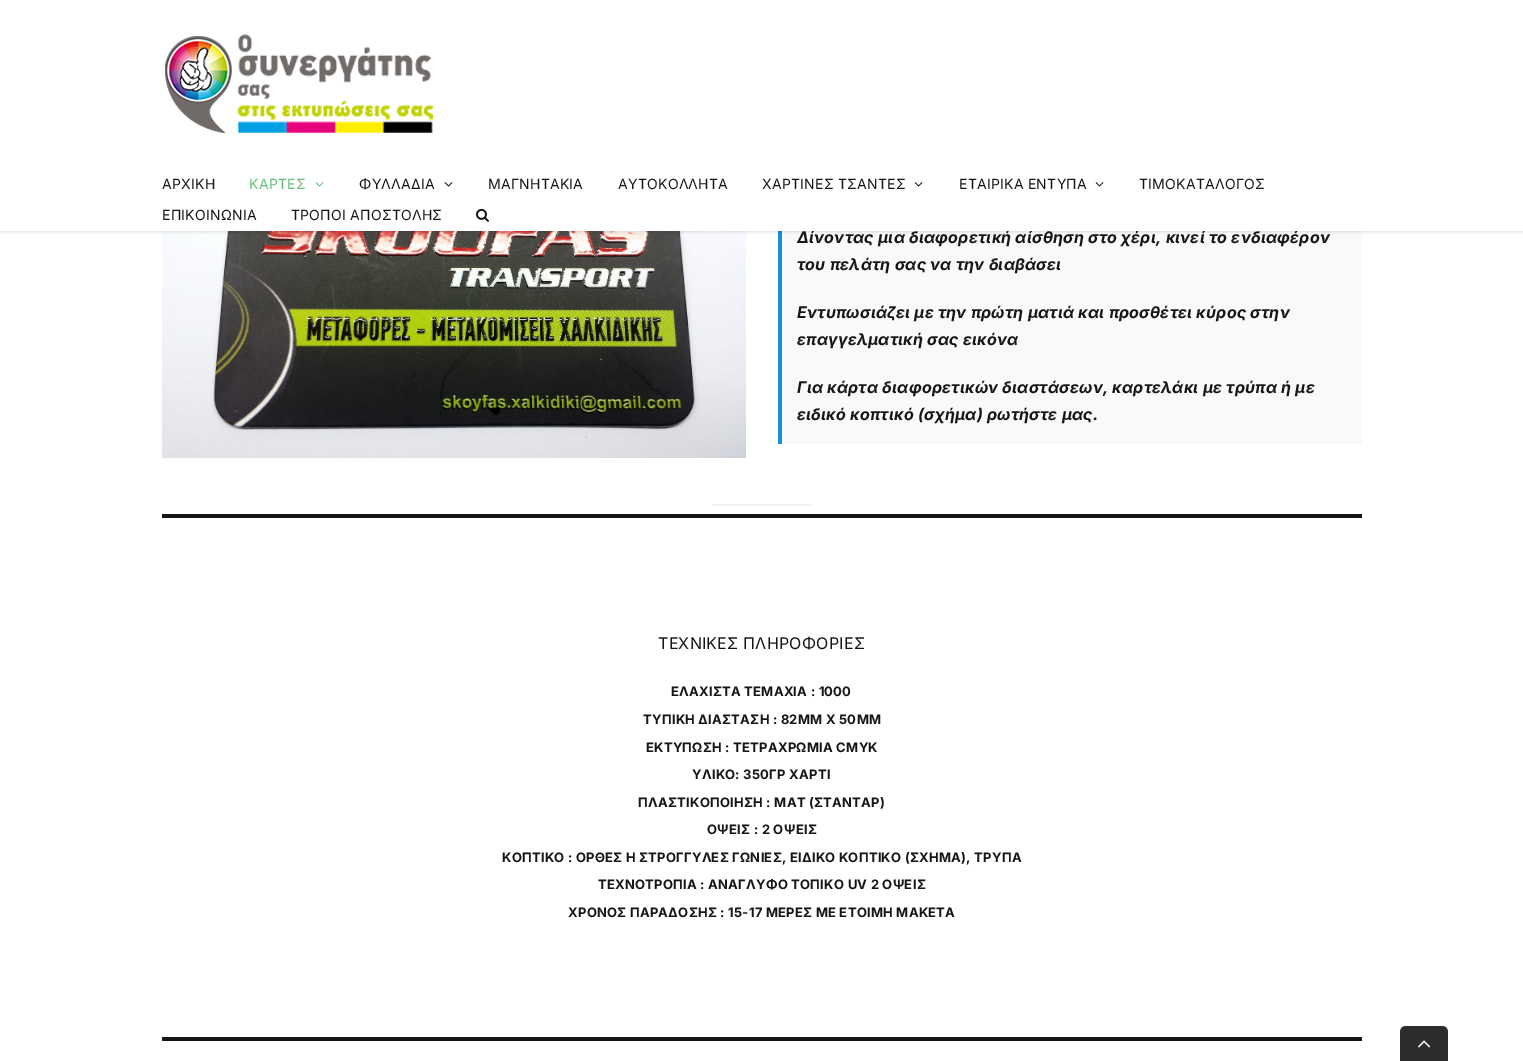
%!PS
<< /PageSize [1523 1061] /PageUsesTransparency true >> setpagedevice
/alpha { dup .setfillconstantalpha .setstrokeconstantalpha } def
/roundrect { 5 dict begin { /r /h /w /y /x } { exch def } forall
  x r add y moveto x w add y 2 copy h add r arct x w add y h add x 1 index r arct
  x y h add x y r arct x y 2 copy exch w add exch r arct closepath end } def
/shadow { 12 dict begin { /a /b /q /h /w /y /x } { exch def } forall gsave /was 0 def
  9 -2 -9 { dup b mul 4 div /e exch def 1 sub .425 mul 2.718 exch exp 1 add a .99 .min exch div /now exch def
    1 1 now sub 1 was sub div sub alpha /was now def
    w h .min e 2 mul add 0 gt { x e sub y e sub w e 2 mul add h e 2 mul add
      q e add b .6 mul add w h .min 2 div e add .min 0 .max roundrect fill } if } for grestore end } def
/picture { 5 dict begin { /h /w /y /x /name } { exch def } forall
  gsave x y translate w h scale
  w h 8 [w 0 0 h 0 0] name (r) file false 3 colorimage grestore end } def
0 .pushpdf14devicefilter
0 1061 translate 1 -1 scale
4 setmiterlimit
1 setgray
0 0 1523 1061 rectfill
(img5.rgb) 162 231 584 227 picture
0.976 0.976 0.984 setrgbcolor
782 231 580 213 rectfill
0.098 0.561 0.851 setrgbcolor
778 231 4 213 rectfill
0 setgray
0 1 1523 231 0 1.5 0.12 shadow
/Inter-BoldItalic [16 0 0 -16 0 0] selectfont
0.078 0.086 0.09 setrgbcolor
797 243 moveto 0.25 0 (Δίνοντας μια διαφορετική αίσθηση στο χέρι, κινεί το ενδιαφέρον) ashow
1 setgray
0 0 1523 231 rectfill
(img1.rgb) 165 34 268 99 picture
/Inter-Regular [14 0 0 -14 0 0] selectfont
0.078 0.086 0.09 setrgbcolor
162 189 moveto 0.25 0 (ΑΡΧΙΚΗ) ashow
0.396 0.741 0.49 setrgbcolor
249 189 moveto 0.25 0 (ΚΑΡΤΕΣ) ashow
(img2.rgb) 315 182 9 5 picture
0.078 0.086 0.09 setrgbcolor
359 189 moveto 0.25 0 (ΦΥΛΛΑΔΙΑ) ashow
(img3.rgb) 444 182 9 5 picture
488 189 moveto 0.25 0 (ΜΑΓΝΗΤΑΚΙΑ) ashow
618 189 moveto 0.25 0 (ΑΥΤΟΚΟΛΛΗΤΑ) ashow
762 189 moveto 0.25 0 (ΧΑΡΤΙΝΕΣ ΤΣΑΝΤΕΣ) ashow
(img3.rgb) 914 182 9 5 picture
959 189 moveto 0.25 0 (ΕΤΑΙΡΙΚΑ ΕΝΤΥΠΑ) ashow
(img3.rgb) 1095 182 9 5 picture
1139 189 moveto 0.25 0 (ΤΙΜΟΚΑΤΑΛΟΓΟΣ) ashow
162 220 moveto 0.25 0 (ΕΠΙΚΟΙΝΩΝΙΑ) ashow
291 220 moveto 0.25 0 (ΤΡΟΠΟΙ ΑΠΟΣΤΟΛΗΣ) ashow
(img4.rgb) 476 208 13 14 picture
/Inter-BoldItalic [16 0 0 -16 0 0] selectfont
797 270 moveto 0.25 0 (του πελάτη σας να την διαβάσει) ashow
797 318 moveto 0.25 0 (Εντυπωσιάζει με την πρώτη ματιά και προσθέτει κύρος στην) ashow
797 345 moveto 0.25 0 (επαγγελματική σας εικόνα) ashow
797 393 moveto 0.25 0 (Για κάρτα διαφορετικών διαστάσεων, καρτελάκι με τρύπα ή με) ashow
797 420 moveto 0.25 0 (ειδικό κοπτικό \(σχήμα\) ρωτήστε μας.) ashow
0.949 0.953 0.961 setrgbcolor
712 504 100 2 rectfill
0.078 0.086 0.09 setrgbcolor
162 514 1200 4 rectfill
162 1037 1200 4 rectfill
/Inter-Regular [16 0 0 -16 0 0] selectfont
658 649 moveto 0.25 0 (ΤΕΧΝΙΚΕΣ ΠΛΗΡΟΦΟΡΙΕΣ) ashow
/Inter-Bold [13 0 0 -13 0 0] selectfont
671 696 moveto 0.25 0 (ΕΛΑΧΙΣΤΑ ΤΕΜΑΧΙΑ : 1000) ashow
643 724 moveto 0.25 0 (ΤΥΠΙΚΗ ΔΙΑΣΤΑΣΗ : 82MM X 50MM) ashow
646 752 moveto 0.25 0 (ΕΚΤΥΠΩΣΗ : ΤΕΤΡΑΧΡΩΜΙΑ CMYK) ashow
692 779 moveto 0.25 0 (ΥΛΙΚΟ: 350ΓΡ ΧΑΡΤΙ) ashow
638 807 moveto 0.25 0 (ΠΛΑΣΤΙΚΟΠΟΙΗΣΗ : ΜΑΤ \(ΣΤΑΝΤΑΡ\)) ashow
707 834 moveto 0.25 0 (ΟΨΕΙΣ : 2 ΟΨΕΙΣ) ashow
502 862 moveto 0.25 0 (ΚΟΠΤΙΚΟ : ΟΡΘΕΣ Η ΣΤΡΟΓΓΥΛΕΣ ΓΩΝΙΕΣ, ΕΙΔΙΚΟ ΚΟΠΤΙΚΟ \(ΣΧΗΜΑ\), ΤΡΥΠΑ) ashow
598 889 moveto 0.25 0 (ΤΕΧΝΟΤΡΟΠΙΑ : ΑΝΑΓΛΥΦΟ ΤΟΠΙΚΟ UV 2 ΟΨΕΙΣ) ashow
568 917 moveto 0.25 0 (ΧΡΟΝΟΣ ΠΑΡΑΔΟΣΗΣ : 15-17 ΜΕΡΕΣ ΜΕ ΕΤΟΙΜΗ ΜΑΚΕΤΑ) ashow
0.173 0.176 0.18 setrgbcolor
newpath 1406 1026 moveto 1442 1026 lineto 1445.5 1026 1448 1028.5 1448 1032 curveto 1448 1061 lineto 1400 1061 lineto 1400 1032 lineto 1400 1028.5 1402.5 1026 1406 1026 curveto closepath fill
(img6.rgb) 1418 1040 13 8 picture
.poppdf14devicefilter showpage
